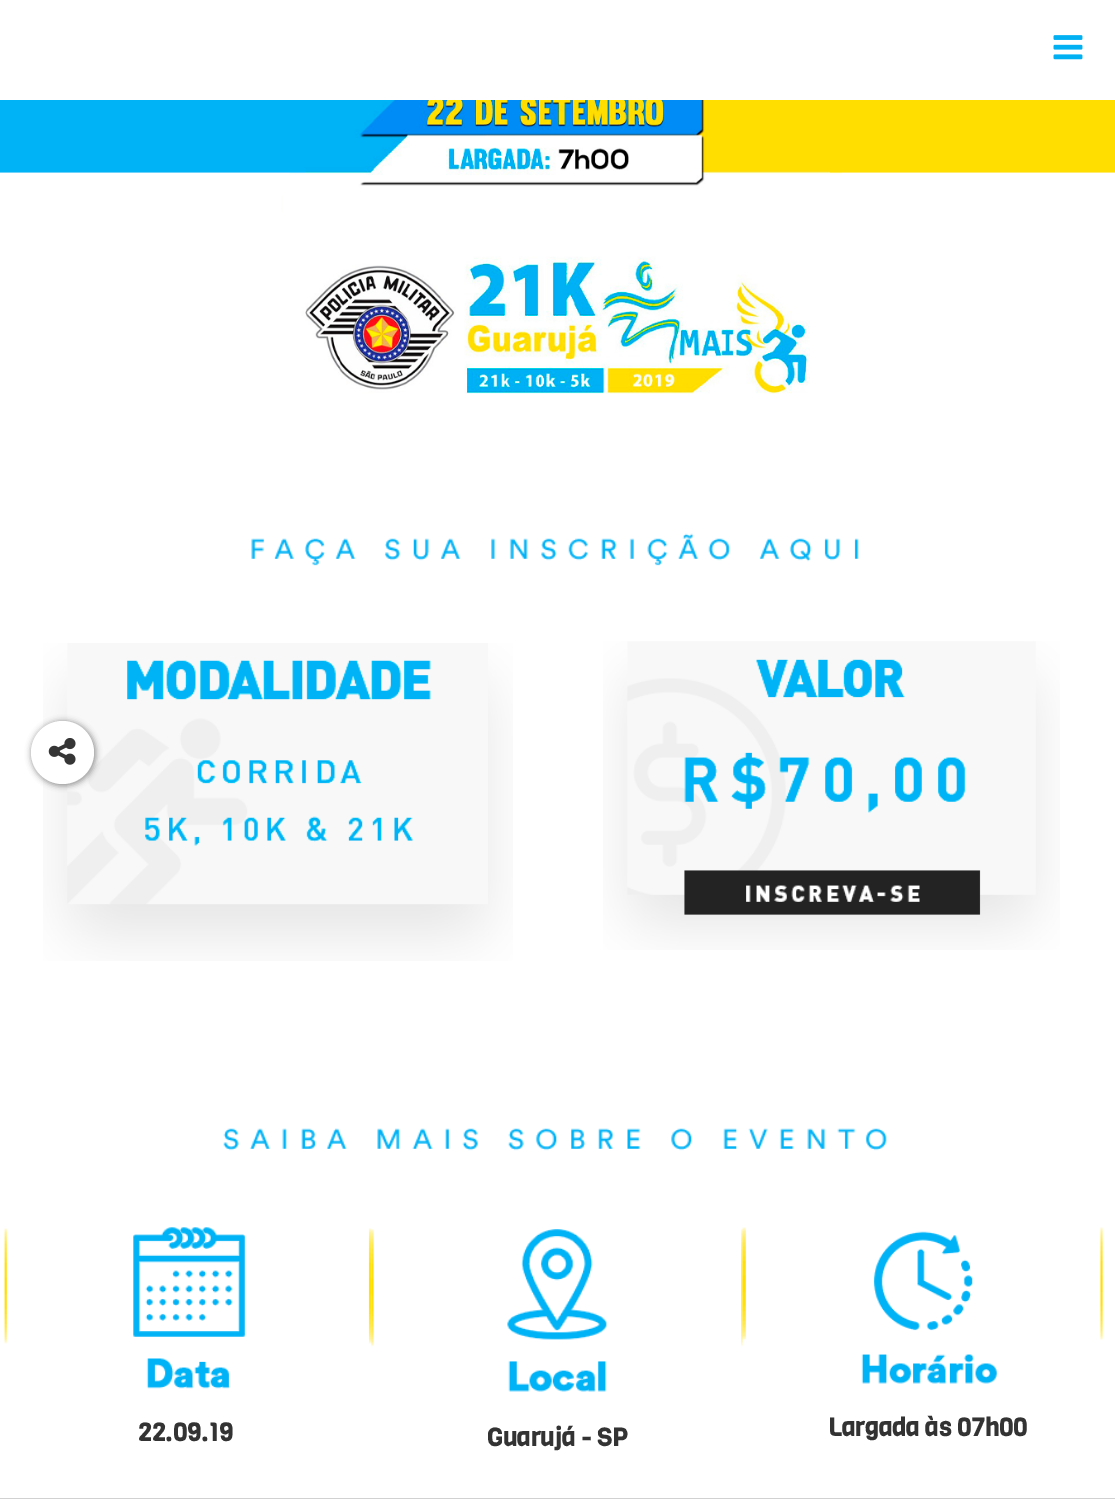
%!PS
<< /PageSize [1115 1505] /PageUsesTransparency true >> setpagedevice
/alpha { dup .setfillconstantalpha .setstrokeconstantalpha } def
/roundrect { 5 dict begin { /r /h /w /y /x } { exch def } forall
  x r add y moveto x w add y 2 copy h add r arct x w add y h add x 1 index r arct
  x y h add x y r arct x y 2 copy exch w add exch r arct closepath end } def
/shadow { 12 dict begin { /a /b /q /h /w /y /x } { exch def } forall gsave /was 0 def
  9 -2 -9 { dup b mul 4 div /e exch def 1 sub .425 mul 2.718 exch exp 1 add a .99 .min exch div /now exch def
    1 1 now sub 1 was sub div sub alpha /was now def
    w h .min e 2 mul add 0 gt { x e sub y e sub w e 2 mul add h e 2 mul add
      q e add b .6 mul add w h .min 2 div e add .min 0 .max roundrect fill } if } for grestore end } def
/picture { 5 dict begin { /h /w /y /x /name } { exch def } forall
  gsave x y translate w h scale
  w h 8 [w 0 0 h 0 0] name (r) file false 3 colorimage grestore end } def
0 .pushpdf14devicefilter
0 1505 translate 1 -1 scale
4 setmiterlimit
1 setgray
0 0 1115 1505 rectfill
(img5.rgb) 43 643 470 318 picture
0.212 setgray
31 721 65 65 32.5 3 0.5 shadow
1 setgray
newpath 62.5 752.5 31.5 0 360 arc closepath fill
(img1.rgb) 48 738 28 27 picture
(img2.rgb) 1053 35 30 25 picture
(img3.rgb) 0 100 1115 294 picture
(img4.rgb) 251 533 608 33 picture
(img6.rgb) 603 641 457 309 picture
(img7.rgb) 223 1128 664 23 picture
(img8.rgb) 4 1227 368 162 picture
/Viga-Bold [25 0 0 -25 0 0] selectfont
0.2 setgray
138 1441 moveto (22.09.19) show
(img9.rgb) 371 1229 372 163 picture
487 1446 moveto (Guarujá - SP) show
(img10.rgb) 742 1227 361 157 picture
828 1436 moveto (Largada às 07h00) show
0.82 setgray
0 1498 1115 1 rectfill
.poppdf14devicefilter showpage
